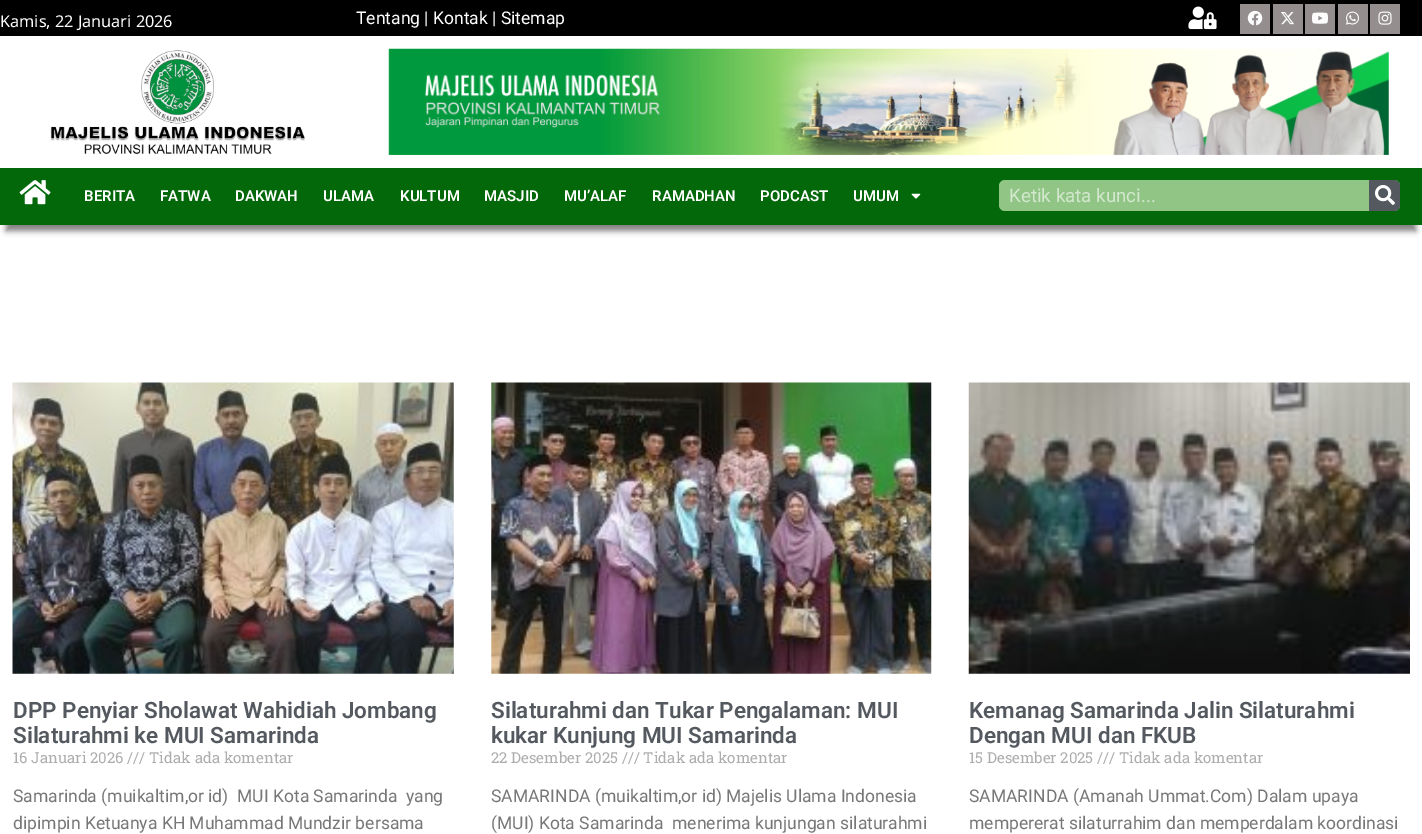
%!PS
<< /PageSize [1422 834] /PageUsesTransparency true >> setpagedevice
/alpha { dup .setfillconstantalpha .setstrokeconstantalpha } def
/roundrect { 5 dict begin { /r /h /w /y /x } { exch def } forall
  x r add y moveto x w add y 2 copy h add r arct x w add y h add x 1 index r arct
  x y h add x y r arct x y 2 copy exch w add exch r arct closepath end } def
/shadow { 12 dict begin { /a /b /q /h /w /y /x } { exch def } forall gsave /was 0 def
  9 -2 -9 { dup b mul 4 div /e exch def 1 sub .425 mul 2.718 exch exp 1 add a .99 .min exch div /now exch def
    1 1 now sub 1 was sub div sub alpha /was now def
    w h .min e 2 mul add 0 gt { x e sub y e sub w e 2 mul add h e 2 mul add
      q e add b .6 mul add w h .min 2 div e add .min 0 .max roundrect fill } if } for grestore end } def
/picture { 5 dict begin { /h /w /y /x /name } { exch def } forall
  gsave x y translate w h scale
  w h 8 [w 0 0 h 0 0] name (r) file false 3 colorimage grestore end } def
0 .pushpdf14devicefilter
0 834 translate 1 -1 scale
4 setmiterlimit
1 setgray
0 0 1422 834 rectfill
0 setgray
0 0 1422 36 rectfill
/NotoSans-Regular [16.25 0 0 -16.25 0 0] selectfont
1 setgray
0 27 moveto (Kamis, 22 Januari 2026) show
/Roboto-Regular [17.5 0 0 -17.5 0 0] selectfont
356 24 moveto (Tentang | Kontak | Sitemap) show
(img1.rgb) 1188 6 29 24 picture
0.58 0.557 0.557 setrgbcolor
1240 4 30 30 rectfill
(img2.rgb) 1247 10 16 16 picture
1273 4 30 30 rectfill
(img3.rgb) 1281 12 13 13 picture
1305 4 30 30 rectfill
(img4.rgb) 1312 12 16 12 picture
1338 4 30 30 rectfill
(img5.rgb) 1346 11 13 14 picture
1370 4 30 30 rectfill
(img6.rgb) 1378 11 14 14 picture
(img7.rgb) 50 50 256 105 picture
(img8.rgb) 388 48 1001 107 picture
0 setgray
6 186 1410 45 0 3 0.5 shadow
0.008 0.408 0.039 setrgbcolor
0 168 1422 57 rectfill
(img9.rgb) 19 180 32 25 picture
/Roboto-SemiBold [15 0 0 -15 0 0] selectfont
1 setgray
84 201 moveto (BERITA) show
160 201 moveto (FATWA) show
235 201 moveto (DAKWAH) show
323 201 moveto (ULAMA) show
400 201 moveto (KULTUM) show
484 201 moveto (MASJID) show
564 201 moveto (MU’ALAF) show
652 201 moveto (RAMADHAN) show
760 201 moveto (PODCAST) show
853 201 moveto (UMUM) show
(img10.rgb) 911 193 10 6 picture
0.565 0.773 0.525 setrgbcolor
999 180 401 31 6 roundrect fill
/Roboto-Regular [18.75 0 0 -18.75 0 0] selectfont
0.827 0.906 0.808 setrgbcolor
1009 202 moveto (Ketik kata kunci...) show
0.329 0.349 0.373 setrgbcolor
newpath 1369 180 moveto 1394 180 lineto 1397.5 180 1400 182.5 1400 186 curveto 1400 205 lineto 1400 208.5 1397.5 211 1394 211 curveto 1369 211 lineto closepath fill
(img11.rgb) 1375 185 20 20 picture
(img12.rgb) 12 382 442 292 picture
/Roboto-SemiBold [22.5 0 0 -22.5 0 0] selectfont
13 718 moveto (DPP Penyiar Sholawat Wahidiah Jombang) show
13 743 moveto (Silaturahmi ke MUI Samarinda) show
/RobotoSlab-Regular [15 0 0 -15 0 0] selectfont
0.678 setgray
13 763 moveto (16 Januari 2026 /// Tidak ada komentar) show
/Roboto-Regular [17.5 0 0 -17.5 0 0] selectfont
0.467 setgray
13 802 moveto (Samarinda \(muikaltim,or id\)  MUI Kota Samarinda  yang) show
13 829 moveto (dipimpin Ketuanya KH Muhammad Mundzir bersama) show
(img13.rgb) 491 382 441 292 picture
/Roboto-SemiBold [22.5 0 0 -22.5 0 0] selectfont
0.329 0.349 0.373 setrgbcolor
491 718 moveto (Silaturahmi dan Tukar Pengalaman: MUI) show
491 743 moveto (kukar Kunjung MUI Samarinda) show
/RobotoSlab-Regular [15 0 0 -15 0 0] selectfont
0.678 setgray
491 763 moveto (22 Desember 2025 /// Tidak ada komentar) show
/Roboto-Regular [17.5 0 0 -17.5 0 0] selectfont
0.467 setgray
491 802 moveto (SAMARINDA \(muikaltim,or id\) Majelis Ulama Indonesia) show
491 829 moveto (\(MUI\) Kota Samarinda  menerima kunjungan silaturahmi) show
(img14.rgb) 968 382 442 292 picture
/Roboto-SemiBold [22.5 0 0 -22.5 0 0] selectfont
0.329 0.349 0.373 setrgbcolor
969 718 moveto (Kemanag Samarinda Jalin Silaturahmi) show
969 743 moveto (Dengan MUI dan FKUB) show
/RobotoSlab-Regular [15 0 0 -15 0 0] selectfont
0.678 setgray
969 763 moveto (15 Desember 2025 /// Tidak ada komentar) show
/Roboto-Regular [17.5 0 0 -17.5 0 0] selectfont
0.467 setgray
969 802 moveto (SAMARINDA \(Amanah Ummat.Com\) Dalam upaya) show
969 829 moveto (mempererat silaturrahim dan memperdalam koordinasi) show
.poppdf14devicefilter showpage
